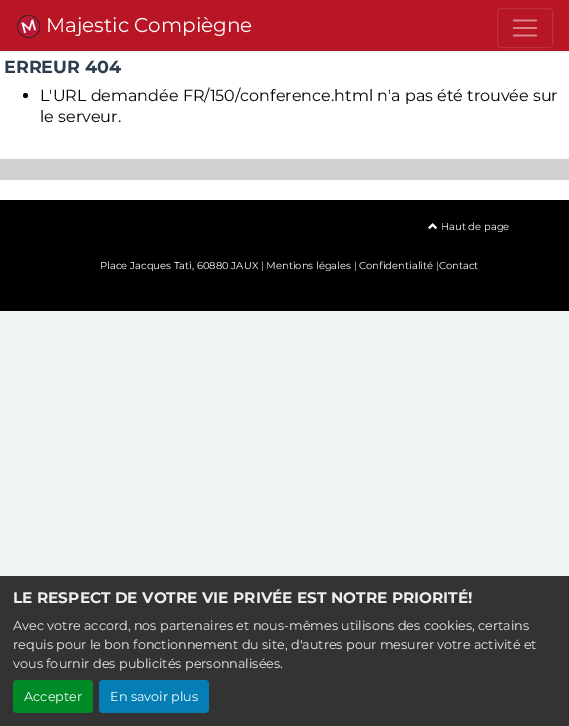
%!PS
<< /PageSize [569 726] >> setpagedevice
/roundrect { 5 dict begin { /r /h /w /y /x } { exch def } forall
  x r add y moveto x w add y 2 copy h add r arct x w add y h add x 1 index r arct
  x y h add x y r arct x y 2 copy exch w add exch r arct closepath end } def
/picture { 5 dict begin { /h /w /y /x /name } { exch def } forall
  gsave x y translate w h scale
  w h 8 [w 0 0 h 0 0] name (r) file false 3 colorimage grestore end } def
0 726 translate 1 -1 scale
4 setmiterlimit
0.945 0.957 0.961 setrgbcolor
0 0 569 726 rectfill
0.725 0.086 0.145 setrgbcolor
0 0 569 51 rectfill
(img1.rgb) 17 15 23 23 picture
/Montserrat-Regular [20 0 0 -20 0 0] selectfont
1 setgray
46 32 moveto (Majestic Compiègne) show
0.753 0.176 0.231 setrgbcolor
497.5 8.5 55 39 3.5 roundrect stroke
(img2.rgb) 512 19 26 18 picture
1 setgray
0 53 569 147 rectfill
/Montserrat-Bold [17.5 0 0 -17.5 0 0] selectfont
0.173 0.243 0.314 setrgbcolor
4 73 moveto (ERREUR 404) show
0.027 setgray
newpath 25.5 95.5 2.5 0 360 arc closepath fill
/Montserrat-Regular [16 0 0 -16 0 0] selectfont
40 101 moveto (L'URL demandée FR/150/conference.html n'a pas été trouvée sur) show
40 122 moveto (le serveur.) show
0.82 setgray
0 159 569 21 rectfill
0 setgray
0 200 569 111 rectfill
(img3.rgb) 428 223 10 7 picture
/Montserrat-Regular [10 0 0 -10 0 0] selectfont
1 setgray
441 230 moveto (Haut de page) show
100 269 moveto (Place Jacques Tati, 60880 JAUX | Mentions légales | Confidentialité |Contact) show
0.2 setgray
0 576 569 150 rectfill
/Montserrat-Bold [15.35 0 0 -15.35 0 0] selectfont
0.933 setgray
13 603 moveto (LE RESPECT DE VOTRE VIE PRIVÉE EST NOTRE PRIORITÉ!) show
/Montserrat-Regular [12.8 0 0 -12.8 0 0] selectfont
13 630 moveto (Avec votre accord, nos partenaires et nous-mêmes utilisons des cookies, certains) show
13 649 moveto (requis pour le bon fonctionnement du site, d'autres pour mesurer votre activité et) show
13 668 moveto (vous fournir des publicités personnalisées.) show
0 0.541 0.157 setrgbcolor
13 680 80 33 4 roundrect fill
1 setgray
24 701 moveto (Accepter) show
0.02 0.494 0.714 setrgbcolor
99 680 110 33 4 roundrect fill
1 setgray
110 701 moveto (En savoir plus) show
showpage
